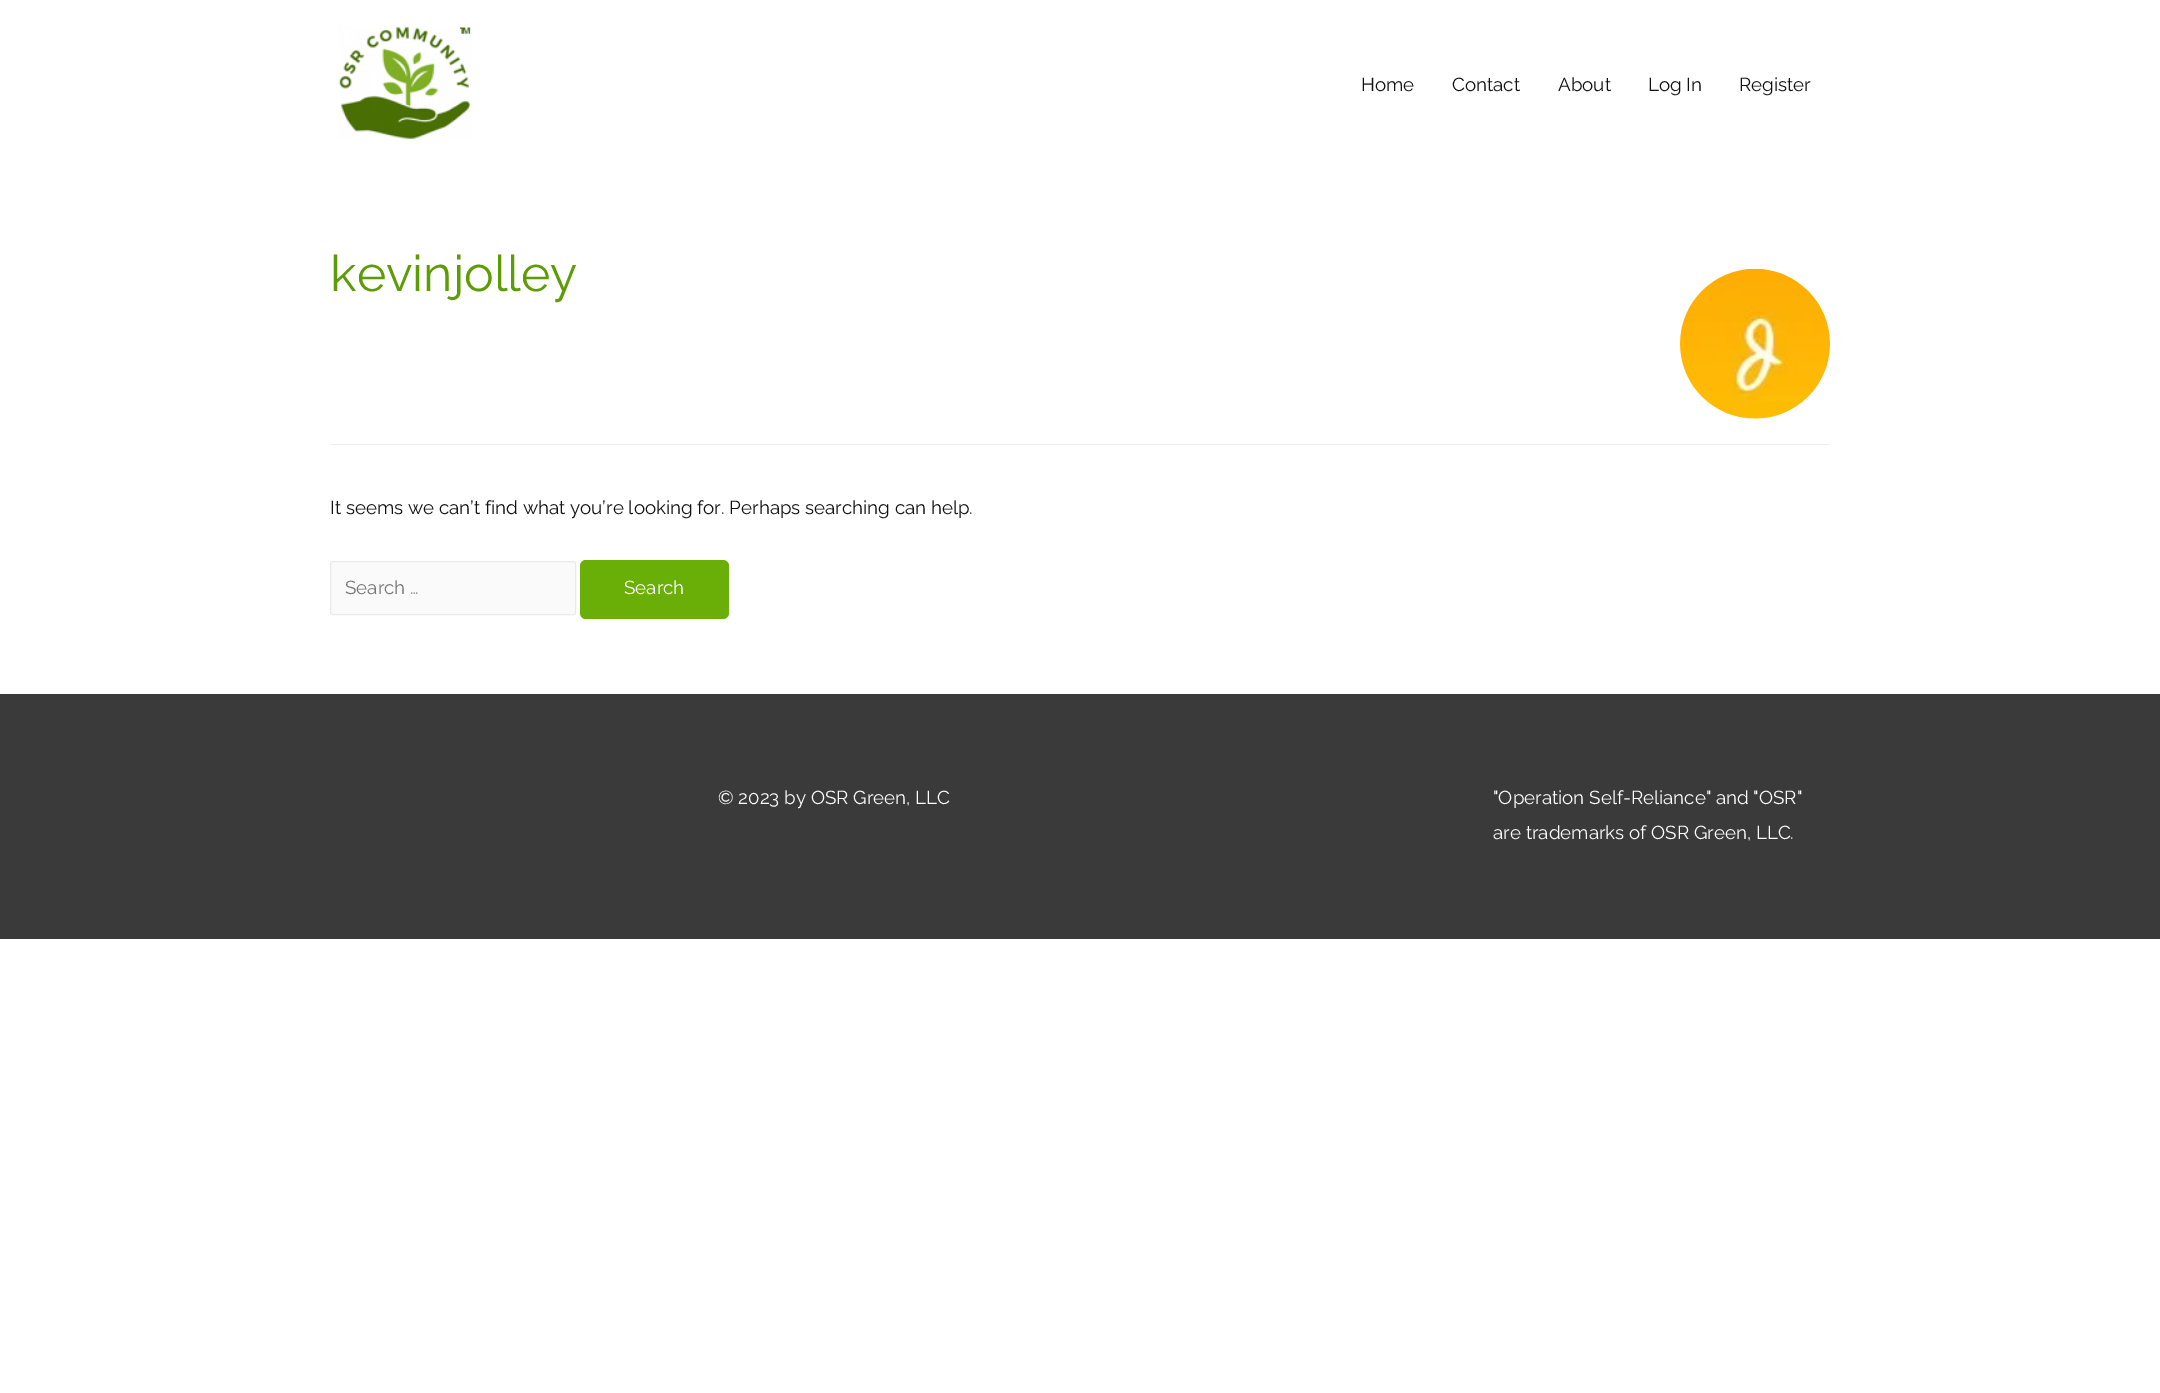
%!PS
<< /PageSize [2160 1393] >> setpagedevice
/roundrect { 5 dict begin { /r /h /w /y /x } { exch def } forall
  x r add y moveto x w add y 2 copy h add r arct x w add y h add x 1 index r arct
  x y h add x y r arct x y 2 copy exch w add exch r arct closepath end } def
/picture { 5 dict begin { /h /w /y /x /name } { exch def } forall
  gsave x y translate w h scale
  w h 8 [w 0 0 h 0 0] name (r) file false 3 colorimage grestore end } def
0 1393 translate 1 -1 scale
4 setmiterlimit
1 setgray
0 0 2160 1393 rectfill
(img1.rgb) 338 26 133 113 picture
/Raleway-Thin [18.75 0 0 -18.75 0 0] selectfont
0.067 setgray
1361 91 moveto (Home) show
1452 91 moveto (Contact) show
1558 91 moveto (About) show
1648 91 moveto (Log In) show
1739 91 moveto (Register) show
0.933 setgray
330 444 1500 1 rectfill
/Raleway-Thin [50 0 0 -50 0 0] selectfont
0.365 0.612 0.016 setrgbcolor
330 291 moveto (kevinjolley) show
(img2.rgb) 1680 268 150 151 picture
/Raleway-Thin [18.75 0 0 -18.75 0 0] selectfont
0.067 setgray
330 514 moveto (It seems we can’t find what you’re looking for. Perhaps searching can help.) show
0.98 setgray
330.5 561.5 245 53 2 roundrect gsave fill grestore
0.918 setgray
stroke
0.459 setgray
345 594 moveto (Search …) show
0.416 0.686 0.031 setrgbcolor
580 560 149 59 6 roundrect fill
1 setgray
624 594 moveto (Search) show
0.227 setgray
0 694 2160 245 rectfill
1 setgray
718 804 moveto (© 2023 by OSR Green, LLC) show
1493 804 moveto ("Operation Self-Reliance" and "OSR") show
1493 839 moveto (are trademarks of OSR Green, LLC.) show
showpage
